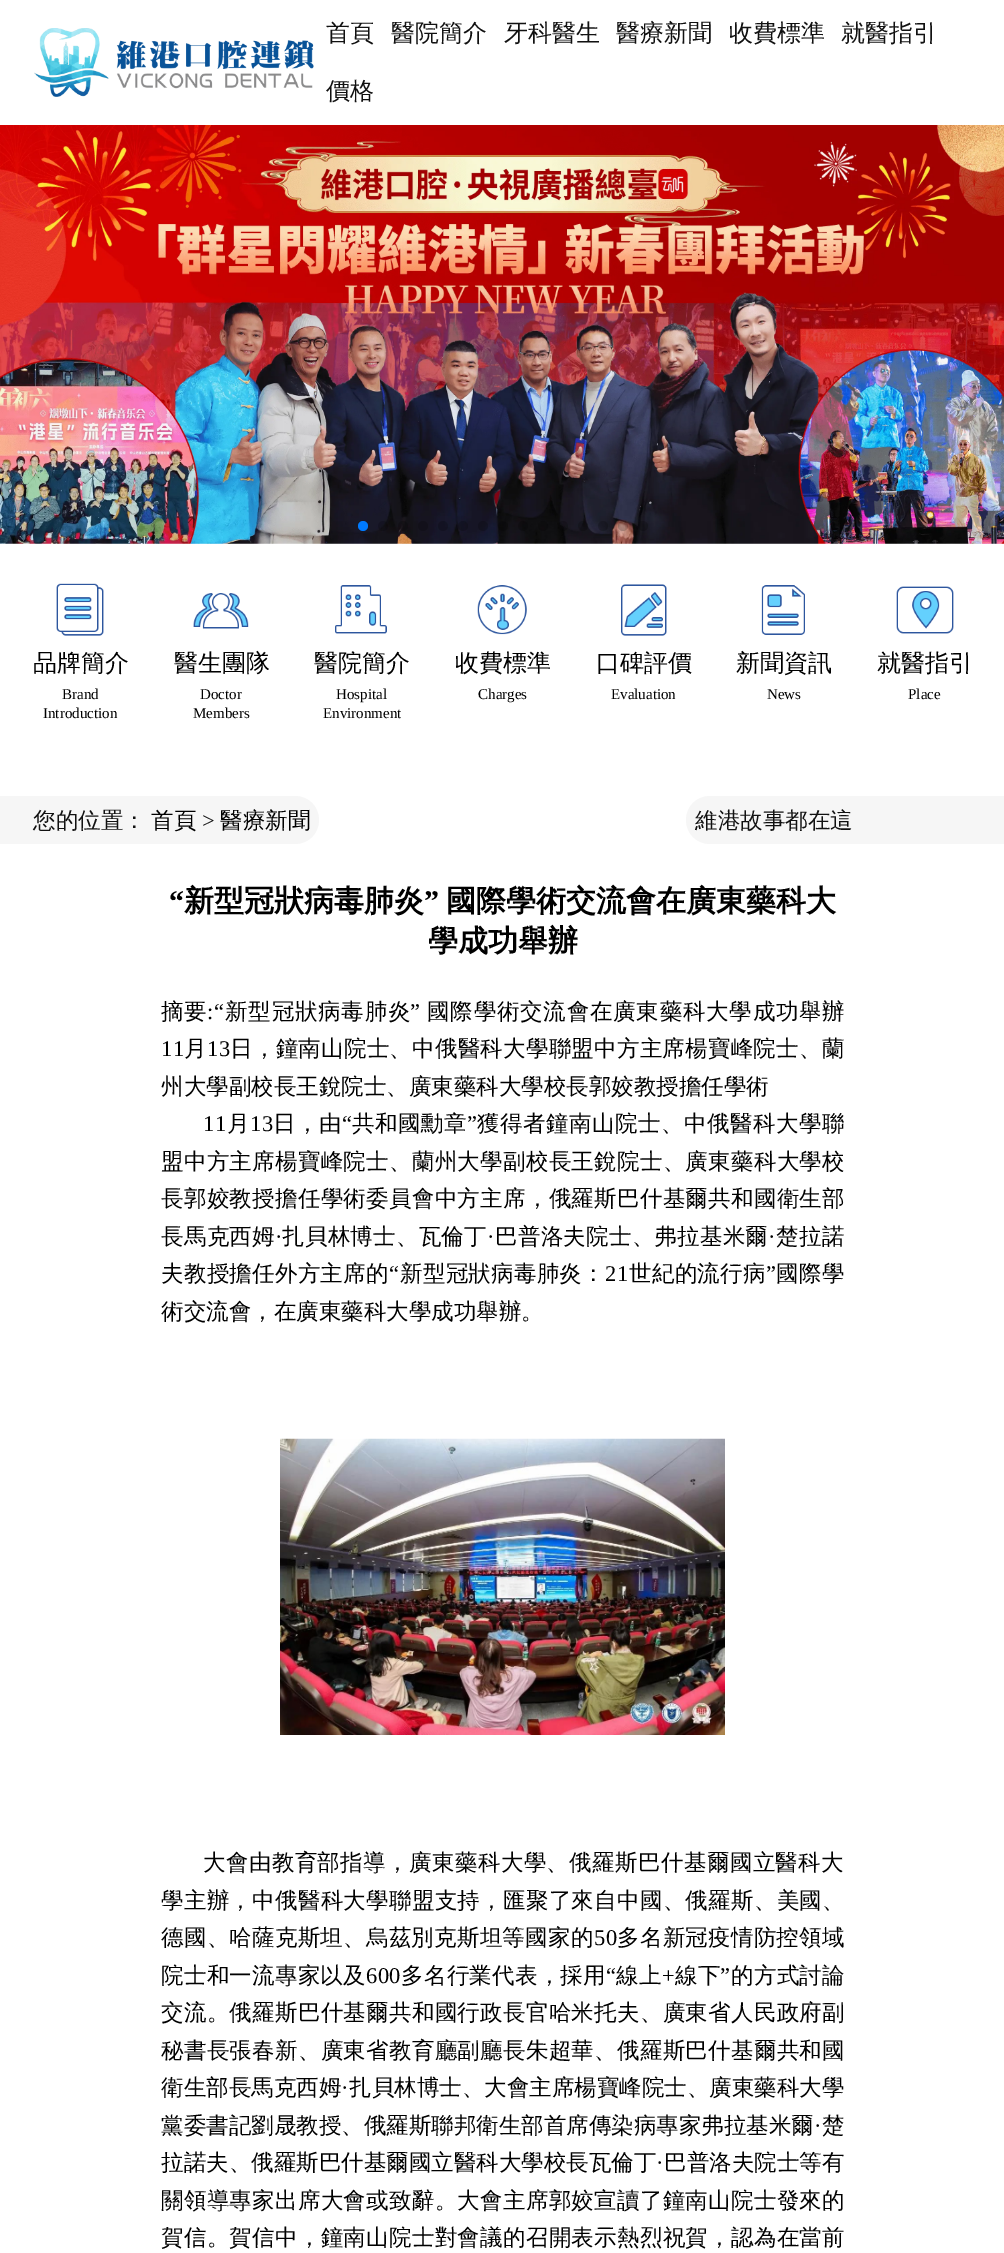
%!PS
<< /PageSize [1004 2253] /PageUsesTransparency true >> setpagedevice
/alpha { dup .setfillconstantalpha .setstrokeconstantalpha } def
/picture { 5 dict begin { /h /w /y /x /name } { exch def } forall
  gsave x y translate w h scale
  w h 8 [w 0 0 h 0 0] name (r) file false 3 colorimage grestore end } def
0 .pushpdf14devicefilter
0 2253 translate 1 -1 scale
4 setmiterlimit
1 setgray
0 0 1004 2253 rectfill
(img1.rgb) 34 28 280 69 picture
/WenQuanYiZenHei-Medium [24 0 0 -24 0 0] selectfont
0.067 setgray
326 41 moveto (首頁) show
391 41 moveto (醫院簡介) show
504 41 moveto (牙科醫生) show
616 41 moveto (醫療新聞) show
729 41 moveto (收費標準) show
841 41 moveto (就醫指引) show
326 99 moveto (價格) show
(img2.rgb) 0 125 1004 419 picture
0 0.478 1 setrgbcolor
newpath 363 526 5 0 360 arc closepath fill
0.2 alpha
0 setgray
newpath 383 526 5 0 360 arc closepath fill
newpath 403 526 5 0 360 arc closepath fill
newpath 423 526 5 0 360 arc closepath fill
newpath 443 526 5 0 360 arc closepath fill
newpath 463 526 5 0 360 arc closepath fill
newpath 483 526 5 0 360 arc closepath fill
newpath 503 526 5 0 360 arc closepath fill
newpath 523 526 5 0 360 arc closepath fill
newpath 543 526 5 0 360 arc closepath fill
newpath 563 526 5 0 360 arc closepath fill
newpath 583 526 5 0 360 arc closepath fill
newpath 603 526 5 0 360 arc closepath fill
newpath 623 526 5 0 360 arc closepath fill
newpath 643 526 5 0 360 arc closepath fill
1 alpha
(img3.rgb) 56 583 48 53 picture
33 671 moveto (品牌簡介) show
/LiberationSerif-Regular [15 0 0 -15 0 0] selectfont
62 699 moveto (Brand) show
43 718 moveto (Introduction) show
(img4.rgb) 193 593 56 36 picture
/WenQuanYiZenHei-Medium [24 0 0 -24 0 0] selectfont
174 671 moveto (醫生團隊) show
/LiberationSerif-Regular [15 0 0 -15 0 0] selectfont
200 699 moveto (Doctor) show
193 718 moveto (Members) show
(img5.rgb) 335 585 52 49 picture
/WenQuanYiZenHei-Medium [24 0 0 -24 0 0] selectfont
314 671 moveto (醫院簡介) show
/LiberationSerif-Regular [15 0 0 -15 0 0] selectfont
336 699 moveto (Hospital) show
323 718 moveto (Environment) show
(img6.rgb) 477 585 50 50 picture
/WenQuanYiZenHei-Medium [24 0 0 -24 0 0] selectfont
455 671 moveto (收費標準) show
/LiberationSerif-Regular [15 0 0 -15 0 0] selectfont
478 699 moveto (Charges) show
(img7.rgb) 621 584 46 52 picture
/WenQuanYiZenHei-Medium [24 0 0 -24 0 0] selectfont
596 671 moveto (口碑評價) show
/LiberationSerif-Regular [15 0 0 -15 0 0] selectfont
611 699 moveto (Evaluation) show
(img8.rgb) 761 585 44 50 picture
/WenQuanYiZenHei-Medium [24 0 0 -24 0 0] selectfont
736 671 moveto (新聞資訊) show
/LiberationSerif-Regular [15 0 0 -15 0 0] selectfont
767 699 moveto (News) show
(img9.rgb) 896 586 58 48 picture
/WenQuanYiZenHei-Medium [24 0 0 -24 0 0] selectfont
877 671 moveto (就醫指引) show
/LiberationSerif-Regular [15 0 0 -15 0 0] selectfont
908 699 moveto (Place) show
0.965 setgray
newpath 0 796 moveto 295 796 lineto 308.5 796 319 806.5 319 820 curveto 319 833.5 308.5 844 295 844 curveto 0 844 lineto closepath fill
/WenQuanYiZenHei-Medium [22.5 0 0 -22.5 0 0] selectfont
0.067 setgray
33 828 moveto (您的位置：) show
0 setgray
151 828 moveto (首頁) show
/LiberationSerif-Regular [22.5 0 0 -22.5 0 0] selectfont
0.067 setgray
202 828 moveto (>) show
/WenQuanYiZenHei-Medium [22.5 0 0 -22.5 0 0] selectfont
0 setgray
220 828 moveto (醫療新聞) show
0.965 setgray
newpath 710 796 moveto 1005 796 lineto 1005 844 lineto 710 844 lineto 696.5 844 686 833.5 686 820 curveto 686 806.5 696.5 796 710 796 curveto closepath fill
0.067 setgray
695 828 moveto (維港故事都在這) show
/LiberationSerif-Bold [30 0 0 -30 0 0] selectfont
0 setgray
169 911 moveto (“) show
/WenQuanYiZenHei-Bold [30 0 0 -30 0 0] selectfont
184 911 moveto (新型冠狀病毒肺炎) show
/LiberationSerif-Bold [30 0 0 -30 0 0] selectfont
424 911 moveto (”) show
/WenQuanYiZenHei-Bold [30 0 0 -30 0 0] selectfont
446 911 moveto (國際學術交流會在廣東藥科大) show
428 951 moveto (學成功舉辦) show
/WenQuanYiZenHei-Medium [22.5 0 0 -22.5 0 0] selectfont
161 1019 moveto 0.75 0 (摘要) ashow
/LiberationSerif-Regular [22.5 0 0 -22.5 0 0] selectfont
207 1019 moveto 0.75 0 (:“) ashow
/WenQuanYiZenHei-Medium [22.5 0 0 -22.5 0 0] selectfont
225 1019 moveto 0.75 0 (新型冠狀病毒肺炎) ashow
/LiberationSerif-Regular [22.5 0 0 -22.5 0 0] selectfont
410 1019 moveto 0.75 0 (”) ashow
/WenQuanYiZenHei-Medium [22.5 0 0 -22.5 0 0] selectfont
427 1019 moveto 0.75 0 (國際學術交流會在廣東藥科大學成功舉辦) ashow
/LiberationSerif-Regular [22.5 0 0 -22.5 0 0] selectfont
161 1056 moveto 0.25 0 (11) ashow
/WenQuanYiZenHei-Medium [22.5 0 0 -22.5 0 0] selectfont
184 1056 moveto 0.25 0 (月) ashow
/LiberationSerif-Regular [22.5 0 0 -22.5 0 0] selectfont
207 1056 moveto 0.25 0 (13) ashow
/WenQuanYiZenHei-Medium [22.5 0 0 -22.5 0 0] selectfont
230 1056 moveto 0.25 0 (日，鐘南山院士、中俄醫科大學聯盟中方主席楊寶峰院士、蘭) ashow
161 1094 moveto (州大學副校長王銳院士、廣東藥科大學校長郭姣教授擔任學術) show
/LiberationSerif-Regular [22.5 0 0 -22.5 0 0] selectfont
203 1131 moveto 0.5 0 (11) ashow
/WenQuanYiZenHei-Medium [22.5 0 0 -22.5 0 0] selectfont
227 1131 moveto 0.5 0 (月) ashow
/LiberationSerif-Regular [22.5 0 0 -22.5 0 0] selectfont
250 1131 moveto 0.5 0 (13) ashow
/WenQuanYiZenHei-Medium [22.5 0 0 -22.5 0 0] selectfont
273 1131 moveto 0.5 0 (日，由) ashow
/LiberationSerif-Regular [22.5 0 0 -22.5 0 0] selectfont
342 1131 moveto 0.5 0 (“) ashow
/WenQuanYiZenHei-Medium [22.5 0 0 -22.5 0 0] selectfont
352 1131 moveto 0.5 0 (共和國勳章) ashow
/LiberationSerif-Regular [22.5 0 0 -22.5 0 0] selectfont
467 1131 moveto 0.5 0 (”) ashow
/WenQuanYiZenHei-Medium [22.5 0 0 -22.5 0 0] selectfont
477 1131 moveto 0.5 0 (獲得者鐘南山院士、中俄醫科大學聯) ashow
161 1169 moveto 0.3 0 (盟中方主席楊寶峰院士、蘭州大學副校長王銳院士、廣東藥科大學校) ashow
161 1206 moveto 0.3 0 (長郭姣教授擔任學術委員會中方主席，俄羅斯巴什基爾共和國衛生部) ashow
161 1244 moveto 0.25 0 (長馬克西姆) ashow
/LiberationSerif-Regular [22.5 0 0 -22.5 0 0] selectfont
275 1244 moveto 0.25 0 (·) ashow
/WenQuanYiZenHei-Medium [22.5 0 0 -22.5 0 0] selectfont
282 1244 moveto 0.25 0 (扎貝林博士、瓦倫丁) ashow
/LiberationSerif-Regular [22.5 0 0 -22.5 0 0] selectfont
487 1244 moveto 0.25 0 (·) ashow
/WenQuanYiZenHei-Medium [22.5 0 0 -22.5 0 0] selectfont
495 1244 moveto 0.25 0 (巴普洛夫院士、弗拉基米爾) ashow
/LiberationSerif-Regular [22.5 0 0 -22.5 0 0] selectfont
768 1244 moveto 0.25 0 (·) ashow
/WenQuanYiZenHei-Medium [22.5 0 0 -22.5 0 0] selectfont
776 1244 moveto 0.25 0 (楚拉諾) ashow
161 1281 moveto 0.25 0 (夫教授擔任外方主席的) ashow
/LiberationSerif-Regular [22.5 0 0 -22.5 0 0] selectfont
389 1281 moveto 0.25 0 (“) ashow
/WenQuanYiZenHei-Medium [22.5 0 0 -22.5 0 0] selectfont
400 1281 moveto 0.25 0 (新型冠狀病毒肺炎：) ashow
/LiberationSerif-Regular [22.5 0 0 -22.5 0 0] selectfont
605 1281 moveto 0.25 0 (21) ashow
/WenQuanYiZenHei-Medium [22.5 0 0 -22.5 0 0] selectfont
629 1281 moveto 0.25 0 (世紀的流行病) ashow
/LiberationSerif-Regular [22.5 0 0 -22.5 0 0] selectfont
766 1281 moveto 0.25 0 (”) ashow
/WenQuanYiZenHei-Medium [22.5 0 0 -22.5 0 0] selectfont
776 1281 moveto 0.25 0 (國際學) ashow
161 1319 moveto (術交流會，在廣東藥科大學成功舉辦。) show
(img10.rgb) 280 1438 445 297 picture
203 1870 moveto 0.4 0 (大會由教育部指導，廣東藥科大學、俄羅斯巴什基爾國立醫科大) ashow
161 1908 moveto 0.3 0 (學主辦，中俄醫科大學聯盟支持，匯聚了來自中國、俄羅斯、美國、) ashow
161 1945 moveto 0.25 0 (德國、哈薩克斯坦、烏茲別克斯坦等國家的) ashow
/LiberationSerif-Regular [22.5 0 0 -22.5 0 0] selectfont
594 1945 moveto 0.25 0 (50) ashow
/WenQuanYiZenHei-Medium [22.5 0 0 -22.5 0 0] selectfont
617 1945 moveto 0.25 0 (多名新冠疫情防控領域) ashow
161 1983 moveto 0.25 0 (院士和一流專家以及) ashow
/LiberationSerif-Regular [22.5 0 0 -22.5 0 0] selectfont
366 1983 moveto 0.25 0 (600) ashow
/WenQuanYiZenHei-Medium [22.5 0 0 -22.5 0 0] selectfont
401 1983 moveto 0.25 0 (多名行業代表，採用) ashow
/LiberationSerif-Regular [22.5 0 0 -22.5 0 0] selectfont
606 1983 moveto 0.25 0 (“) ashow
/WenQuanYiZenHei-Medium [22.5 0 0 -22.5 0 0] selectfont
616 1983 moveto 0.25 0 (線上) ashow
/LiberationSerif-Regular [22.5 0 0 -22.5 0 0] selectfont
662 1983 moveto 0.25 0 (+) ashow
/WenQuanYiZenHei-Medium [22.5 0 0 -22.5 0 0] selectfont
675 1983 moveto 0.25 0 (線下) ashow
/LiberationSerif-Regular [22.5 0 0 -22.5 0 0] selectfont
720 1983 moveto 0.25 0 (”) ashow
/WenQuanYiZenHei-Medium [22.5 0 0 -22.5 0 0] selectfont
731 1983 moveto 0.25 0 (的方式討論) ashow
161 2020 moveto 0.3 0 (交流。俄羅斯巴什基爾共和國行政長官哈米托夫、廣東省人民政府副) ashow
161 2058 moveto 0.3 0 (秘書長張春新、廣東省教育廳副廳長朱超華、俄羅斯巴什基爾共和國) ashow
161 2095 moveto (衛生部長馬克西姆) show
/LiberationSerif-Regular [22.5 0 0 -22.5 0 0] selectfont
341 2095 moveto (·) show
/WenQuanYiZenHei-Medium [22.5 0 0 -22.5 0 0] selectfont
349 2095 moveto (扎貝林博士、大會主席楊寶峰院士、廣東藥科大學) show
161 2133 moveto (黨委書記劉晟教授、俄羅斯聯邦衛生部首席傳染病專家弗拉基米爾) show
/LiberationSerif-Regular [22.5 0 0 -22.5 0 0] selectfont
814 2133 moveto (·) show
/WenQuanYiZenHei-Medium [22.5 0 0 -22.5 0 0] selectfont
822 2133 moveto (楚) show
161 2170 moveto (拉諾夫、俄羅斯巴什基爾國立醫科大學校長瓦倫丁) show
/LiberationSerif-Regular [22.5 0 0 -22.5 0 0] selectfont
656 2170 moveto (·) show
/WenQuanYiZenHei-Medium [22.5 0 0 -22.5 0 0] selectfont
664 2170 moveto (巴普洛夫院士等有) show
161 2208 moveto 0.3 0 (關領導專家出席大會或致辭。大會主席郭姣宣讀了鐘南山院士發來的) ashow
161 2245 moveto 0.3 0 (賀信。賀信中，鐘南山院士對會議的召開表示熱烈祝賀，認為在當前) ashow
.poppdf14devicefilter showpage
